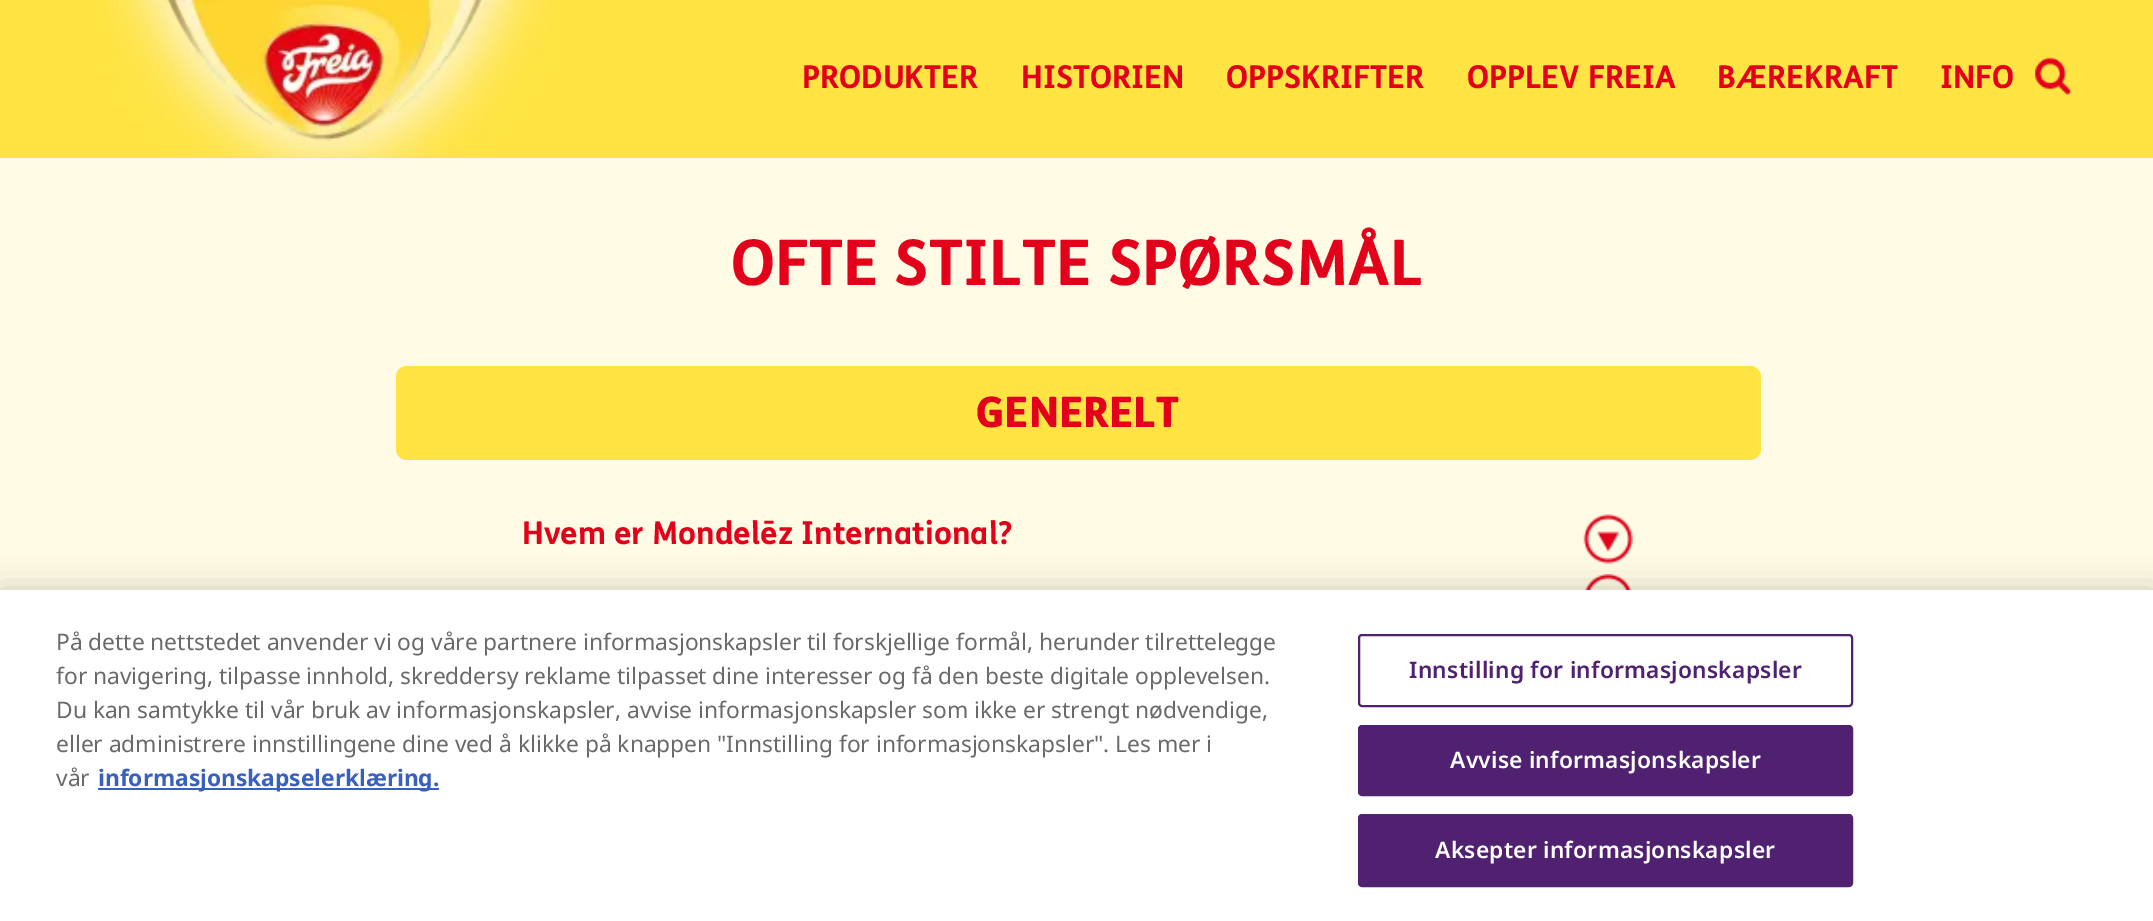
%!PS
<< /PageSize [2153 921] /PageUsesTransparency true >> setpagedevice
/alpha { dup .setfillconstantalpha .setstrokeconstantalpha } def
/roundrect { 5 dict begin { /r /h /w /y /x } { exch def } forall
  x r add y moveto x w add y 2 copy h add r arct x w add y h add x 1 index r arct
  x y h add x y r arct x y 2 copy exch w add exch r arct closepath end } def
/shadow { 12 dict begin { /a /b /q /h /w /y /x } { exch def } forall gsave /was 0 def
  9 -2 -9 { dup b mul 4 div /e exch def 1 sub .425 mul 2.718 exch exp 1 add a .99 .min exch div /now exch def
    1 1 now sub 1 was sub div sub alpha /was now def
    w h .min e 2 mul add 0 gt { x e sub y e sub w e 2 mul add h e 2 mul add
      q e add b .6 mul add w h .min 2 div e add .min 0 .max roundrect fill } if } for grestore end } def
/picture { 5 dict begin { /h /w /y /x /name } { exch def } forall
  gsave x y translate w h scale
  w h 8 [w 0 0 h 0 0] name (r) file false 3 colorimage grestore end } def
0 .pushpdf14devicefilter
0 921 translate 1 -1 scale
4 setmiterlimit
1 0.984 0.898 setrgbcolor
0 0 2153 921 rectfill
1 0.894 0.267 setrgbcolor
0 0 2153 158 rectfill
(img1.rgb) 107 0 445 158 picture
/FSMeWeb-Bold [31.5 0 0 -31.5 0 0] selectfont
0.886 0 0.102 setrgbcolor
802 88 moveto (PRODUKTER) show
1021 88 moveto (HISTORIEN) show
1226 88 moveto (OPPSKRIFTER) show
1467 88 moveto (OPPLEV FREIA) show
1717 88 moveto (BÆREKRAFT) show
1940 88 moveto (INFO) show
(img2.rgb) 2035 57 36 38 picture
/FSMeWeb-Bold [63 0 0 -63 0 0] selectfont
731 285 moveto (OFTE STILTE SPØRSMÅL) show
1 0.894 0.267 setrgbcolor
396 366 1365 94 11 roundrect fill
/FSMeWeb-Black [42 0 0 -42 0 0] selectfont
0.886 0 0.102 setrgbcolor
976 427 moveto (GENERELT) show
/FSMeWeb-Bold [31.5 0 0 -31.5 0 0] selectfont
522 544 moveto (Hvem er Mondelēz International?) show
(img3.rgb) 1583 514 50 50 picture
(img4.rgb) 1585 574 47 16 picture
0 setgray
0 590 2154 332 0 16 0.2 shadow
1 setgray
0 590 2153 331 rectfill
/NotoSans-Regular [22.75 0 0 -22.75 0 0] selectfont
0.412 setgray
56 650 moveto (På dette nettstedet anvender vi og våre partnere informasjonskapsler til forskjellige formål, herunder tilrettelegge) show
56 684 moveto (for navigering, tilpasse innhold, skreddersy reklame tilpasset dine interesser og få den beste digitale opplevelsen.) show
56 718 moveto (Du kan samtykke til vår bruk av informasjonskapsler, avvise informasjonskapsler som ikke er strengt nødvendige,) show
56 752 moveto (eller administrere innstillingene dine ved å klikke på knappen "Innstilling for informasjonskapsler". Les mer i) show
56 786 moveto (vår) show
0.22 0.376 0.745 setrgbcolor
98 788 341 2 rectfill
/NotoSans-Bold [22.75 0 0 -22.75 0 0] selectfont
98 786 moveto (informasjonskapselerklæring.) show
0.31 0.129 0.439 setrgbcolor
2 setlinewidth
1359 635 493 71 3 roundrect stroke
/NotoSans-SemiBold [22.75 0 0 -22.75 0 0] selectfont
1409 678 moveto 0.25 0 (Innstilling for informasjonskapsler) ashow
1359 726 493 69 3 roundrect gsave fill grestore
stroke
1 setgray
1450 768 moveto 0.25 0 (Avvise informasjonskapsler) ashow
0.31 0.129 0.439 setrgbcolor
1359 815 493 71 3 roundrect gsave fill grestore
stroke
1 setgray
1435 858 moveto 0.25 0 (Aksepter informasjonskapsler) ashow
.poppdf14devicefilter showpage
